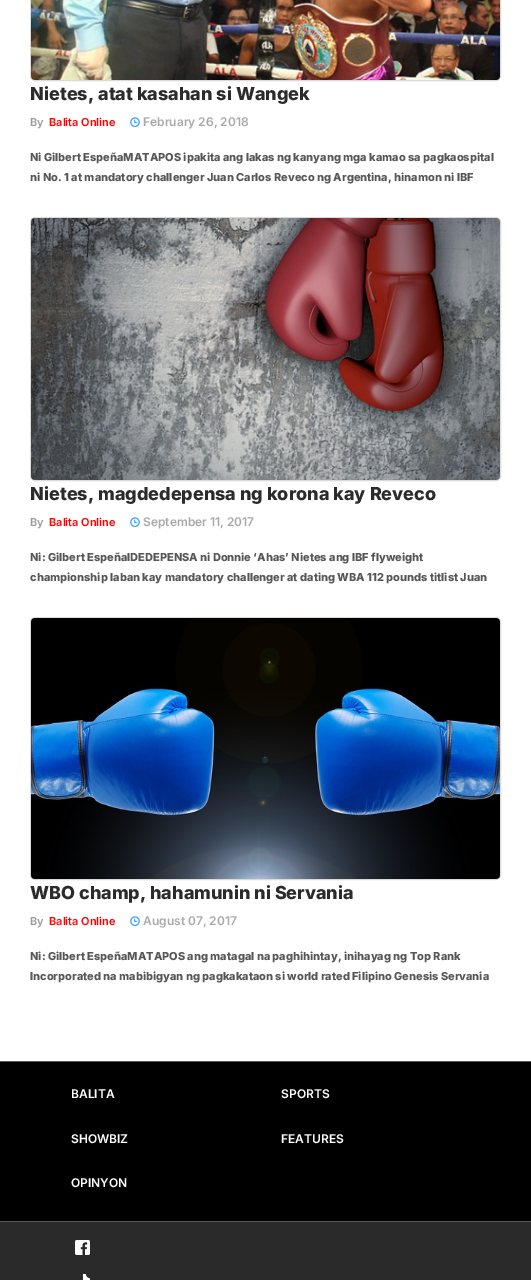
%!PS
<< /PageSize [531 1280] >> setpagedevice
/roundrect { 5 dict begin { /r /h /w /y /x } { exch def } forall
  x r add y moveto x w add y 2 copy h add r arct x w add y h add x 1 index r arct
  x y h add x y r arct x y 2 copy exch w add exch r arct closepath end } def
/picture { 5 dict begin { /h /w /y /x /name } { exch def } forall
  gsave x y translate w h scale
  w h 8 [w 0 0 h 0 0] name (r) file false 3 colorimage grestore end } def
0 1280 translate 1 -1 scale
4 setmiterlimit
1 setgray
0 0 531 1280 rectfill
0.855 setgray
30.5 -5.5 470 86 4.5 roundrect stroke
(img1.rgb) 31 0 469 80 picture
/Inter-ExtraBold [18 0 0 -18 0 0] selectfont
0.169 setgray
30 100 moveto (Nietes, atat kasahan si Wangek) show
/Inter-SemiBold [11 0 0 -11 0 0] selectfont
0.608 setgray
30 126 moveto (By) show
1 0 0 setrgbcolor
49 126 moveto (Balita Online) show
(img2.rgb) 130 117 10 10 picture
/Inter-SemiBold [12 0 0 -12 0 0] selectfont
0.667 setgray
143 126 moveto (February 26, 2018) show
/Inter-ExtraBold [11 0 0 -11 0 0] selectfont
0.341 setgray
30 161 moveto (Ni Gilbert EspeñaMATAPOS ipakita ang lakas ng kanyang mga kamao sa pagkaospital) show
30 181 moveto (ni No. 1 at mandatory challenger Juan Carlos Reveco ng Argentina, hinamon ni IBF) show
0.855 setgray
30.5 217.5 470 263 4.5 roundrect stroke
(img3.rgb) 31 218 469 262 picture
/Inter-ExtraBold [18 0 0 -18 0 0] selectfont
0.169 setgray
30 500 moveto (Nietes, magdedepensa ng korona kay Reveco) show
/Inter-SemiBold [11 0 0 -11 0 0] selectfont
0.608 setgray
30 526 moveto (By) show
1 0 0 setrgbcolor
49 526 moveto (Balita Online) show
(img2.rgb) 130 517 10 10 picture
/Inter-SemiBold [12 0 0 -12 0 0] selectfont
0.667 setgray
143 526 moveto (September 11, 2017) show
/Inter-ExtraBold [11 0 0 -11 0 0] selectfont
0.341 setgray
30 561 moveto (Ni: Gilbert EspeñaIDEDEPENSA ni Donnie ‘Ahas’ Nietes ang IBF flyweight) show
30 581 moveto (championship laban kay mandatory challenger at dating WBA 112 pounds titlist Juan) show
0.855 setgray
30.5 617.5 470 262 4.5 roundrect stroke
(img4.rgb) 31 618 469 261 picture
/Inter-ExtraBold [18 0 0 -18 0 0] selectfont
0.169 setgray
30 899 moveto (WBO champ, hahamunin ni Servania) show
/Inter-SemiBold [11 0 0 -11 0 0] selectfont
0.608 setgray
30 925 moveto (By) show
1 0 0 setrgbcolor
49 925 moveto (Balita Online) show
(img2.rgb) 130 916 10 10 picture
/Inter-SemiBold [12 0 0 -12 0 0] selectfont
0.667 setgray
143 925 moveto (August 07, 2017) show
/Inter-ExtraBold [11 0 0 -11 0 0] selectfont
0.341 setgray
30 960 moveto (Ni: Gilbert EspeñaMATAPOS ang matagal na paghihintay, inihayag ng Top Rank) show
30 980 moveto (Incorporated na mabibigyan ng pagkakataon si world rated Filipino Genesis Servania) show
0 setgray
0 1062 531 159 rectfill
0.341 setgray
0 1061 531 1 rectfill
0 1221 531 1 rectfill
/Inter-SemiBold [12 0 0 -12 0 0] selectfont
1 setgray
71 1098 moveto (BALITA) show
281 1098 moveto (SPORTS) show
71 1143 moveto (SHOWBIZ) show
281 1143 moveto (FEATURES) show
71 1187 moveto (OPINYON) show
0.165 setgray
0 1222 531 58 rectfill
(img5.rgb) 75 1240 15 15 picture
(img6.rgb) 82 1274 8 6 picture
showpage
